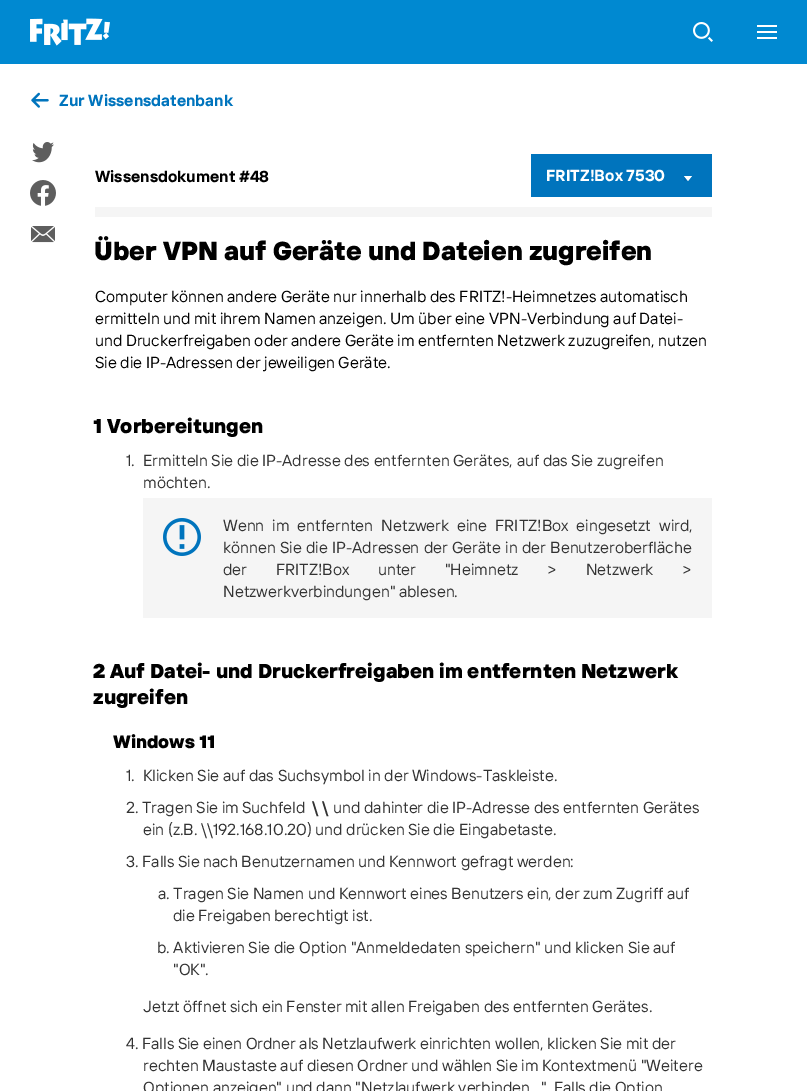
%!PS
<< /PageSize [807 1091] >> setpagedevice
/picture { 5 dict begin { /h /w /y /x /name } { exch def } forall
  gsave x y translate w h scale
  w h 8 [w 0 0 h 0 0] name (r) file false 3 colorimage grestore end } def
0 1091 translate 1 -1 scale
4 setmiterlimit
1 setgray
0 0 807 1091 rectfill
0 0.537 0.82 setrgbcolor
0 0 807 64 rectfill
(img1.rgb) 30 18 80 28 picture
(img2.rgb) 693 22 20 20 picture
1 setgray
757 25 20 2 rectfill
757 31 20 2 rectfill
757 37 20 2 rectfill
(img3.rgb) 32 142 22 21 picture
(img4.rgb) 30 180 26 26 picture
(img5.rgb) 31 226 24 17 picture
(img6.rgb) 31 92 18 16 picture
/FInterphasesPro-Bold [16 0 0 -16 0 0] selectfont
0 0.455 0.741 setrgbcolor
59 106 moveto (Zur Wissensdatenbank) show
0.961 setgray
95 207 617 10 rectfill
0 setgray
95 182 moveto (Wissensdokument #48) show
0 0.455 0.741 setrgbcolor
531 154 181 43 rectfill
1 setgray
546 181 moveto (FRITZ!Box 7530) show
(img7.rgb) 684 177 3 4 picture
newpath 684 176 moveto 692 176 lineto 688 181 lineto closepath fill
/FInterphasesPro-Black [26 0 0 -26 0 0] selectfont
0 setgray
94 260 moveto (Über VPN auf Geräte und Dateien zugreifen) show
/FInterphasesPro-Regular [16 0 0 -16 0 0] selectfont
95 302 moveto (Computer können andere Geräte nur innerhalb des FRITZ!-Heimnetzes automatisch) show
95 324 moveto (ermitteln und mit ihrem Namen anzeigen. Um über eine VPN-Verbindung auf Datei-) show
95 346 moveto (und Druckerfreigaben oder andere Geräte im entfernten Netzwerk zuzugreifen, nutzen) show
95 368 moveto (Sie die IP-Adressen der jeweiligen Geräte.) show
/FInterphasesPro-Black [20 0 0 -20 0 0] selectfont
93 433 moveto (1 Vorbereitungen) show
/FInterphasesPro-Regular [16 0 0 -16 0 0] selectfont
0.2 setgray
126 466 moveto (1.) show
143 466 moveto (Ermitteln Sie die IP-Adresse des entfernten Gerätes, auf das Sie zugreifen) show
143 488 moveto (möchten.) show
0.961 setgray
143 498 569 120 rectfill
(img8.rgb) 163 518 38 38 picture
0.2 setgray
223 531 moveto 4.5 0 32 (Wenn im entfernten Netzwerk eine FRITZ!Box eingesetzt wird,) widthshow
223 553 moveto 0.75 0 32 (können Sie die IP-Adressen der Geräte in der Benutzeroberfläche) widthshow
223 575 moveto 25.25 0 32 (der FRITZ!Box unter "Heimnetz > Netzwerk >) widthshow
223 597 moveto (Netzwerkverbindungen" ablesen.) show
/FInterphasesPro-Black [20 0 0 -20 0 0] selectfont
0 setgray
93 678 moveto (2 Auf Datei- und Druckerfreigaben im entfernten Netzwerk) show
93 704 moveto (zugreifen) show
/FInterphasesPro-Black [18 0 0 -18 0 0] selectfont
113 748 moveto (Windows 11) show
/FInterphasesPro-Regular [16 0 0 -16 0 0] selectfont
0.2 setgray
126 781 moveto (1.) show
143 781 moveto (Klicken Sie auf das Suchsymbol in der Windows-Taskleiste.) show
126 813 moveto (2. Tragen Sie im Suchfeld) show
/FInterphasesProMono-Bold [16 0 0 -16 0 0] selectfont
310 813 moveto (\\\\) show
/FInterphasesPro-Regular [16 0 0 -16 0 0] selectfont
333 813 moveto (und dahinter die IP-Adresse des entfernten Gerätes) show
143 835 moveto (ein \(z.B. \\\\192.168.10.20\) und drücken Sie die Eingabetaste.) show
126 867 moveto (3. Falls Sie nach Benutzernamen und Kennwort gefragt werden:) show
158 899 moveto (a. Tragen Sie Namen und Kennwort eines Benutzers ein, der zum Zugriff auf) show
173 921 moveto (die Freigaben berechtigt ist.) show
157 953 moveto (b. Aktivieren Sie die Option "Anmeldedaten speichern" und klicken Sie auf) show
173 975 moveto ("OK".) show
143 1012 moveto (Jetzt öffnet sich ein Fenster mit allen Freigaben des entfernten Gerätes.) show
126 1049 moveto (4. Falls Sie einen Ordner als Netzlaufwerk einrichten wollen, klicken Sie mit der) show
143 1071 moveto (rechten Maustaste auf diesen Ordner und wählen Sie im Kontextmenü "Weitere) show
143 1093 moveto (Optionen anzeigen" und dann "Netzlaufwerk verbinden) show
541 1093 moveto (". Falls die Option) show
showpage
